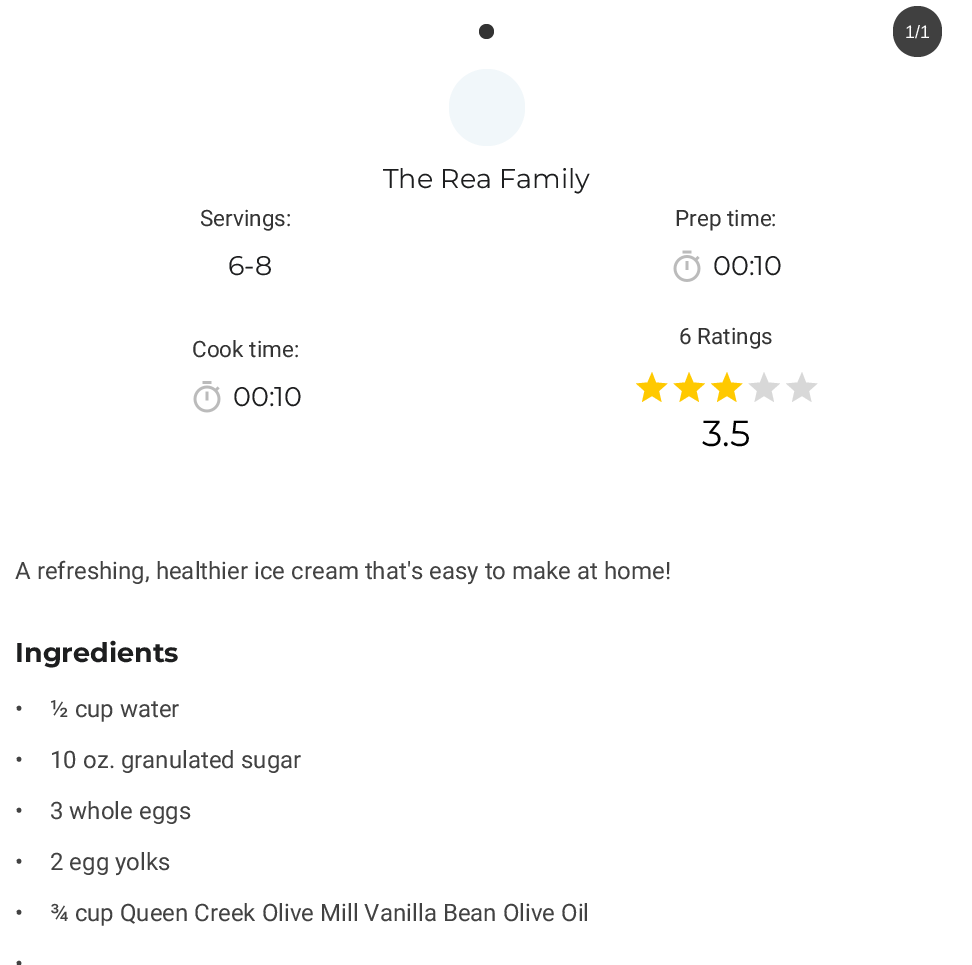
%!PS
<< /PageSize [972 965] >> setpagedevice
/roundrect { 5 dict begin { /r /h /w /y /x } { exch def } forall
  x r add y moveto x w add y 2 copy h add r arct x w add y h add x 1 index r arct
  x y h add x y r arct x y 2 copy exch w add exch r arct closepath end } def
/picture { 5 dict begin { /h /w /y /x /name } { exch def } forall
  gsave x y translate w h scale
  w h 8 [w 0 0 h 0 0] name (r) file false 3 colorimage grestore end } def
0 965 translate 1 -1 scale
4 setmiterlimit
1 setgray
0 0 972 965 rectfill
0.2 setgray
newpath 486.5 31.5 7.5 0 360 arc closepath fill
0.251 setgray
893 6 49 51 24.5 roundrect fill
/LiberationSans-Regular [18 0 0 -18 0 0] selectfont
1 setgray
905 38 moveto (1/1) show
0.945 0.969 0.98 setrgbcolor
449 69 76 77 38 roundrect fill
/Montserrat-Regular [27 0 0 -27 0 0] selectfont
0.114 0.118 0.122 setrgbcolor
383 188 moveto (The Rea Family) show
/Roboto-Regular [22.5 0 0 -22.5 0 0] selectfont
0.204 setgray
200 226 moveto (Servings:) show
/Montserrat-Regular [27 0 0 -27 0 0] selectfont
0.114 0.118 0.122 setrgbcolor
228 275 moveto (6-8) show
/Roboto-Regular [22.5 0 0 -22.5 0 0] selectfont
0.204 setgray
675 226 moveto (Prep time:) show
(img1.rgb) 673 250 28 32 picture
/Montserrat-Regular [27 0 0 -27 0 0] selectfont
0.114 0.118 0.122 setrgbcolor
713 275 moveto (00:10) show
/Roboto-Regular [22.5 0 0 -22.5 0 0] selectfont
0.204 setgray
192 357 moveto (Cook time:) show
(img2.rgb) 193 381 28 32 picture
/Montserrat-Regular [27 0 0 -27 0 0] selectfont
0.114 0.118 0.122 setrgbcolor
233 406 moveto (00:10) show
/Roboto-Regular [22.5 0 0 -22.5 0 0] selectfont
0.204 setgray
679 344 moveto (6 Ratings) show
1 0.788 0 setrgbcolor
newpath 652 396 moveto 661.5 402 lineto 659 391 lineto 667.5 383.5 lineto 656 382.5 lineto 652 372 lineto 647.5 382.5 lineto 636 383.5 lineto 644.5 391 lineto 642 402 lineto closepath fill
newpath 689 396 moveto 699 402 lineto 696.5 391 lineto 705 383.5 lineto 693.5 382.5 lineto 689 372 lineto 685 382.5 lineto 673.5 383.5 lineto 682 391 lineto 679.5 402 lineto closepath fill
newpath 727 396 moveto 736.5 402 lineto 734 391 lineto 742.5 383.5 lineto 731 382.5 lineto 727 372 lineto 722.5 382.5 lineto 711 383.5 lineto 719.5 391 lineto 717 402 lineto closepath fill
0.847 setgray
newpath 764 396 moveto 774 402 lineto 771.5 391 lineto 780 383.5 lineto 768.5 382.5 lineto 764 372 lineto 760 382.5 lineto 748.5 383.5 lineto 757 391 lineto 754.5 402 lineto closepath fill
newpath 802 396 moveto 811.5 402 lineto 809 391 lineto 817.5 383.5 lineto 806 382.5 lineto 802 372 lineto 797.5 382.5 lineto 786 383.5 lineto 794.5 391 lineto 792 402 lineto closepath fill
/Montserrat-Regular [36 0 0 -36 0 0] selectfont
0 setgray
702 446 moveto (3.5) show
/Roboto-Regular [24 0 0 -24 0 0] selectfont
0.259 setgray
15 579 moveto (A refreshing, healthier ice cream that's easy to make at home!) show
/Montserrat-Bold [27 0 0 -27 0 0] selectfont
0.114 0.118 0.122 setrgbcolor
15 662 moveto (Ingredients) show
/Roboto-Regular [24 0 0 -24 0 0] selectfont
0.259 setgray
15 717 moveto (•) show
50 717 moveto (½ cup water) show
15 768 moveto (•) show
50 768 moveto (10 oz. granulated sugar) show
15 819 moveto (•) show
50 819 moveto (3 whole eggs) show
15 870 moveto (•) show
50 870 moveto (2 egg yolks) show
15 921 moveto (•) show
50 921 moveto (¾ cup Queen Creek Olive Mill Vanilla Bean Olive Oil) show
15 972 moveto (•) show
showpage
